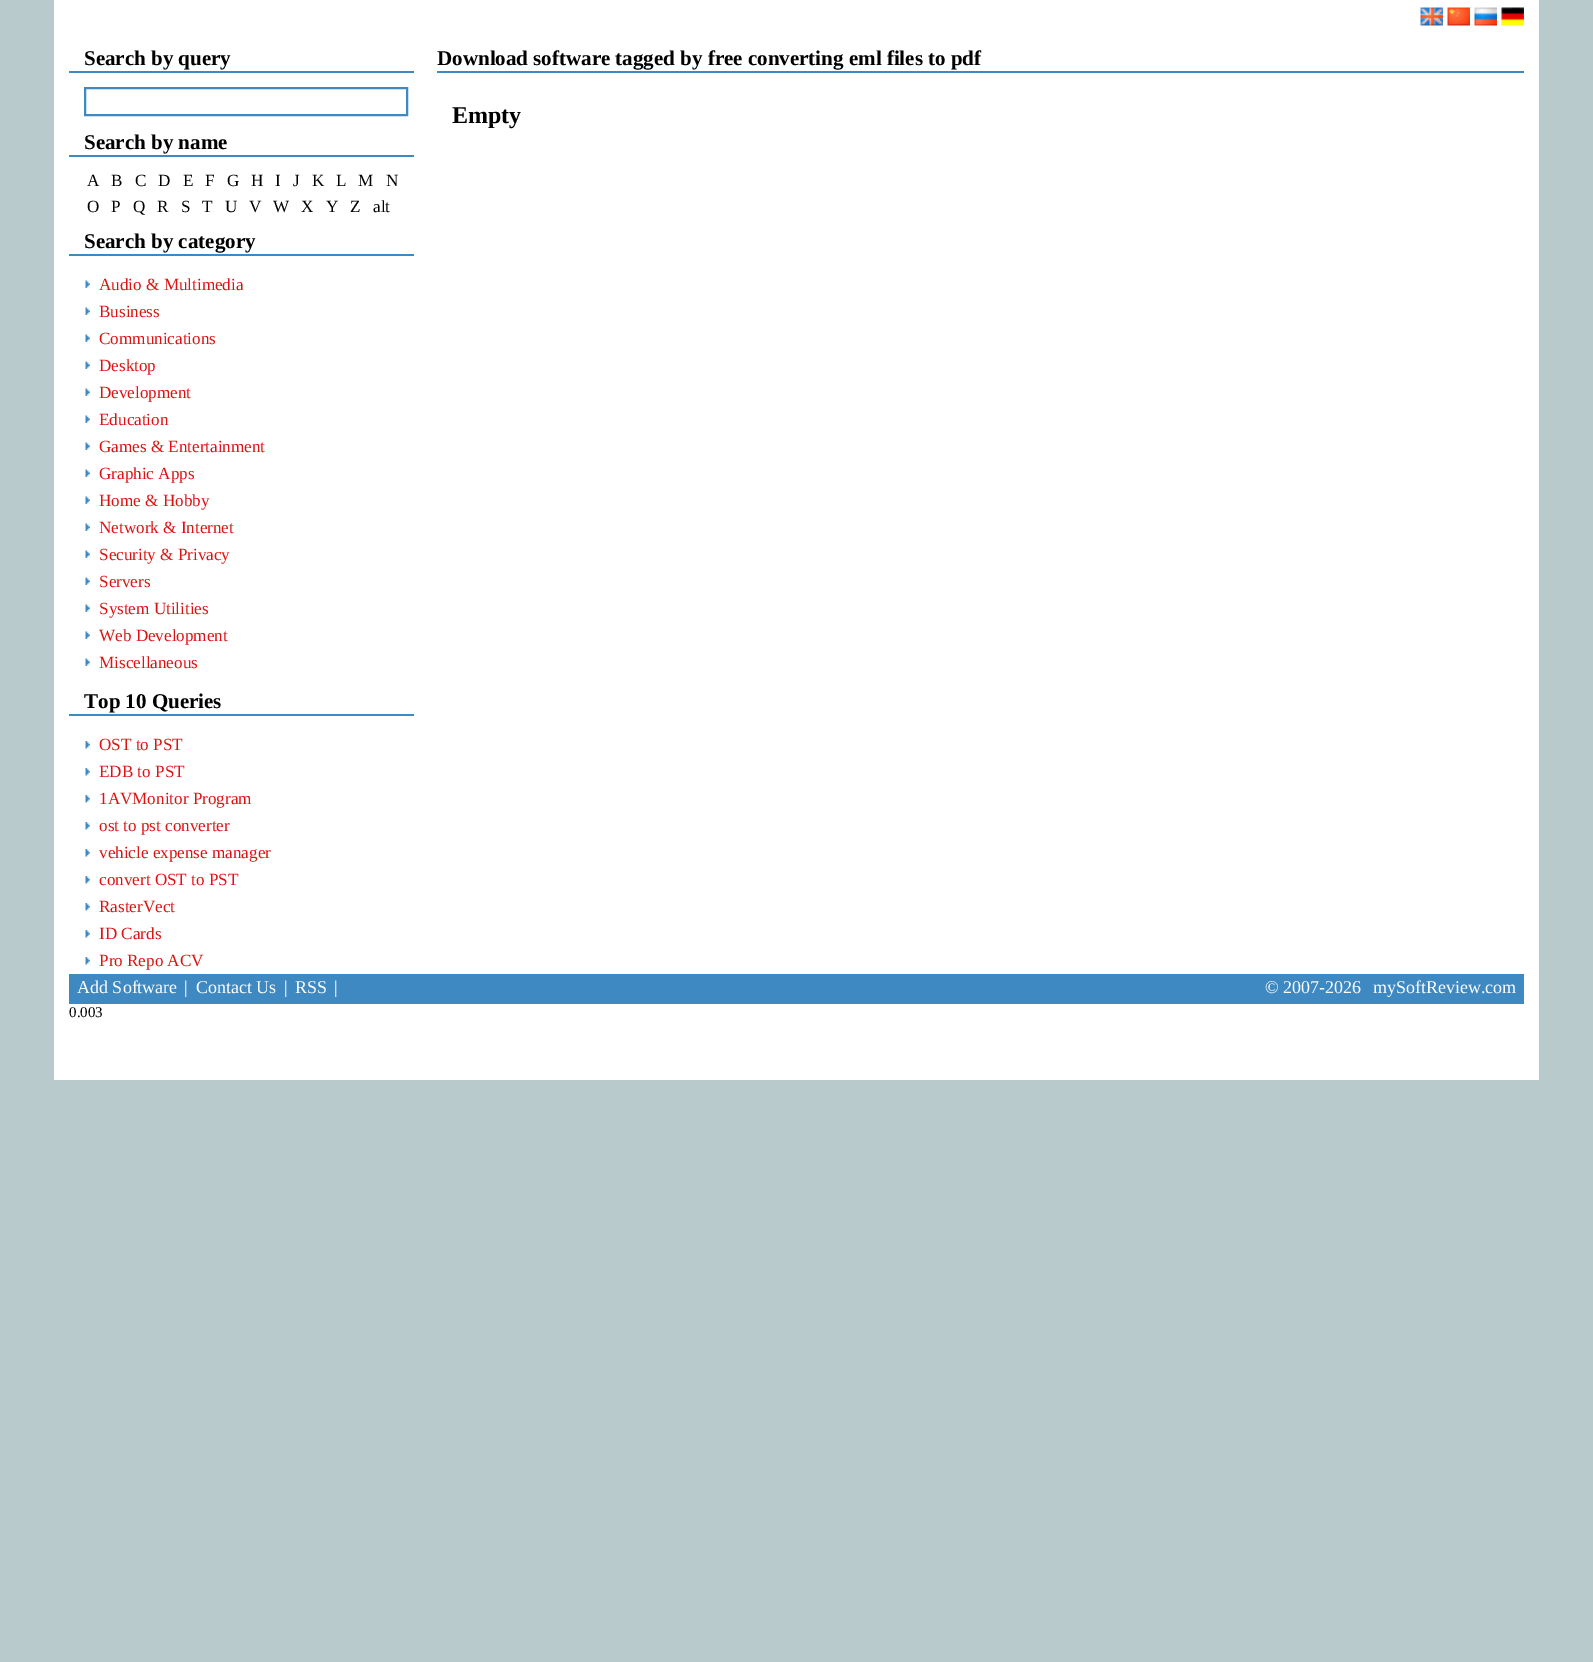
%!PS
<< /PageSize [1593 1662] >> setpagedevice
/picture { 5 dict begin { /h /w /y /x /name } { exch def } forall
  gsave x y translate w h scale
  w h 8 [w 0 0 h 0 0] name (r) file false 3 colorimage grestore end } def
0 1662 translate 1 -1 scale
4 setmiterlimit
0.722 0.792 0.796 setrgbcolor
0 0 1593 1662 rectfill
1 setgray
54 0 1485 1080 rectfill
(img1.rgb) 1420 7 23 19 picture
(img2.rgb) 1447 7 23 19 picture
(img3.rgb) 1474 7 23 19 picture
(img4.rgb) 1501 7 23 19 picture
0.247 0.537 0.765 setrgbcolor
69 71 345 2 rectfill
/LiberationSerif-Bold [21 0 0 -21 0 0] selectfont
0 setgray
84 65 moveto (Search by query) show
0.247 0.537 0.765 setrgbcolor
2 setlinewidth
85 88 322 27 rectstroke
69 155 345 2 rectfill
0 setgray
84 149 moveto (Search by name) show
/LiberationSerif-Regular [17.1 0 0 -17.1 0 0] selectfont
87 186 moveto (A) show
111 186 moveto (B) show
135 186 moveto (C) show
158 186 moveto (D) show
183 186 moveto (E) show
205 186 moveto (F) show
227 186 moveto (G) show
251 186 moveto (H) show
275 186 moveto (I) show
293 186 moveto (J) show
312 186 moveto (K) show
336 186 moveto (L) show
358 186 moveto (M) show
386 186 moveto (N) show
87 212 moveto (O) show
111 212 moveto (P) show
133 212 moveto (Q) show
157 212 moveto (R) show
181 212 moveto (S) show
202 212 moveto (T) show
225 212 moveto (U) show
249 212 moveto (V) show
273 212 moveto (W) show
301 212 moveto (X) show
326 212 moveto (Y) show
350 212 moveto (Z) show
373 212 moveto (alt) show
0.247 0.537 0.765 setrgbcolor
69 254 345 2 rectfill
/LiberationSerif-Bold [21 0 0 -21 0 0] selectfont
0 setgray
84 248 moveto (Search by category) show
(img5.rgb) 85 280 5 8 picture
/LiberationSerif-Regular [17.1 0 0 -17.1 0 0] selectfont
0.867 0.071 0.071 setrgbcolor
99 290 moveto (Audio & Multimedia) show
(img5.rgb) 85 307 5 8 picture
99 317 moveto (Business) show
(img5.rgb) 85 334 5 8 picture
99 344 moveto (Communications) show
(img5.rgb) 85 361 5 8 picture
99 371 moveto (Desktop) show
(img5.rgb) 85 388 5 8 picture
99 398 moveto (Development) show
(img5.rgb) 85 415 5 8 picture
99 425 moveto (Education) show
(img5.rgb) 85 442 5 8 picture
99 452 moveto (Games & Entertainment) show
(img5.rgb) 85 469 5 8 picture
99 479 moveto (Graphic Apps) show
(img5.rgb) 85 496 5 8 picture
99 506 moveto (Home & Hobby) show
(img5.rgb) 85 523 5 8 picture
99 533 moveto (Network & Internet) show
(img5.rgb) 85 550 5 8 picture
99 560 moveto (Security & Privacy) show
(img5.rgb) 85 577 5 8 picture
99 587 moveto (Servers) show
(img5.rgb) 85 604 5 8 picture
99 614 moveto (System Utilities) show
(img5.rgb) 85 631 5 8 picture
99 641 moveto (Web Development) show
(img5.rgb) 85 658 5 8 picture
99 668 moveto (Miscellaneous) show
0.247 0.537 0.765 setrgbcolor
69 714 345 2 rectfill
/LiberationSerif-Bold [21 0 0 -21 0 0] selectfont
0 setgray
84 708 moveto (Top 10 Queries) show
(img6.rgb) 85 741 5 8 picture
/LiberationSerif-Regular [17.1 0 0 -17.1 0 0] selectfont
0.867 0.071 0.071 setrgbcolor
99 750 moveto (OST to PST) show
(img6.rgb) 85 768 5 8 picture
99 777 moveto (EDB to PST) show
(img6.rgb) 85 795 5 8 picture
99 804 moveto (1AVMonitor Program) show
(img6.rgb) 85 822 5 8 picture
99 831 moveto (ost to pst converter) show
(img6.rgb) 85 849 5 8 picture
99 858 moveto (vehicle expense manager) show
(img6.rgb) 85 876 5 8 picture
99 885 moveto (convert OST to PST) show
(img6.rgb) 85 903 5 8 picture
99 912 moveto (RasterVect) show
(img6.rgb) 85 930 5 8 picture
99 939 moveto (ID Cards) show
(img6.rgb) 85 957 5 8 picture
99 966 moveto (Pro Repo ACV) show
0.247 0.537 0.765 setrgbcolor
437 71 1087 2 rectfill
/LiberationSerif-Bold [21 0 0 -21 0 0] selectfont
0 setgray
437 65 moveto (Download software tagged by free converting eml files to pdf) show
/LiberationSerif-Bold [24 0 0 -24 0 0] selectfont
452 123 moveto (Empty) show
0.247 0.537 0.765 setrgbcolor
69 974 1455 30 rectfill
/LiberationSerif-Regular [18 0 0 -18 0 0] selectfont
1 setgray
77 993 moveto (Add Software) show
184 993 moveto (|) show
196 993 moveto (Contact Us) show
284 993 moveto (|) show
295 993 moveto (RSS) show
334 993 moveto (|) show
1265 993 moveto (© 2007-2026) show
1373 993 moveto (mySoftReview.com) show
/LiberationSerif-Regular [15 0 0 -15 0 0] selectfont
0 setgray
69 1017 moveto (0.003) show
showpage
